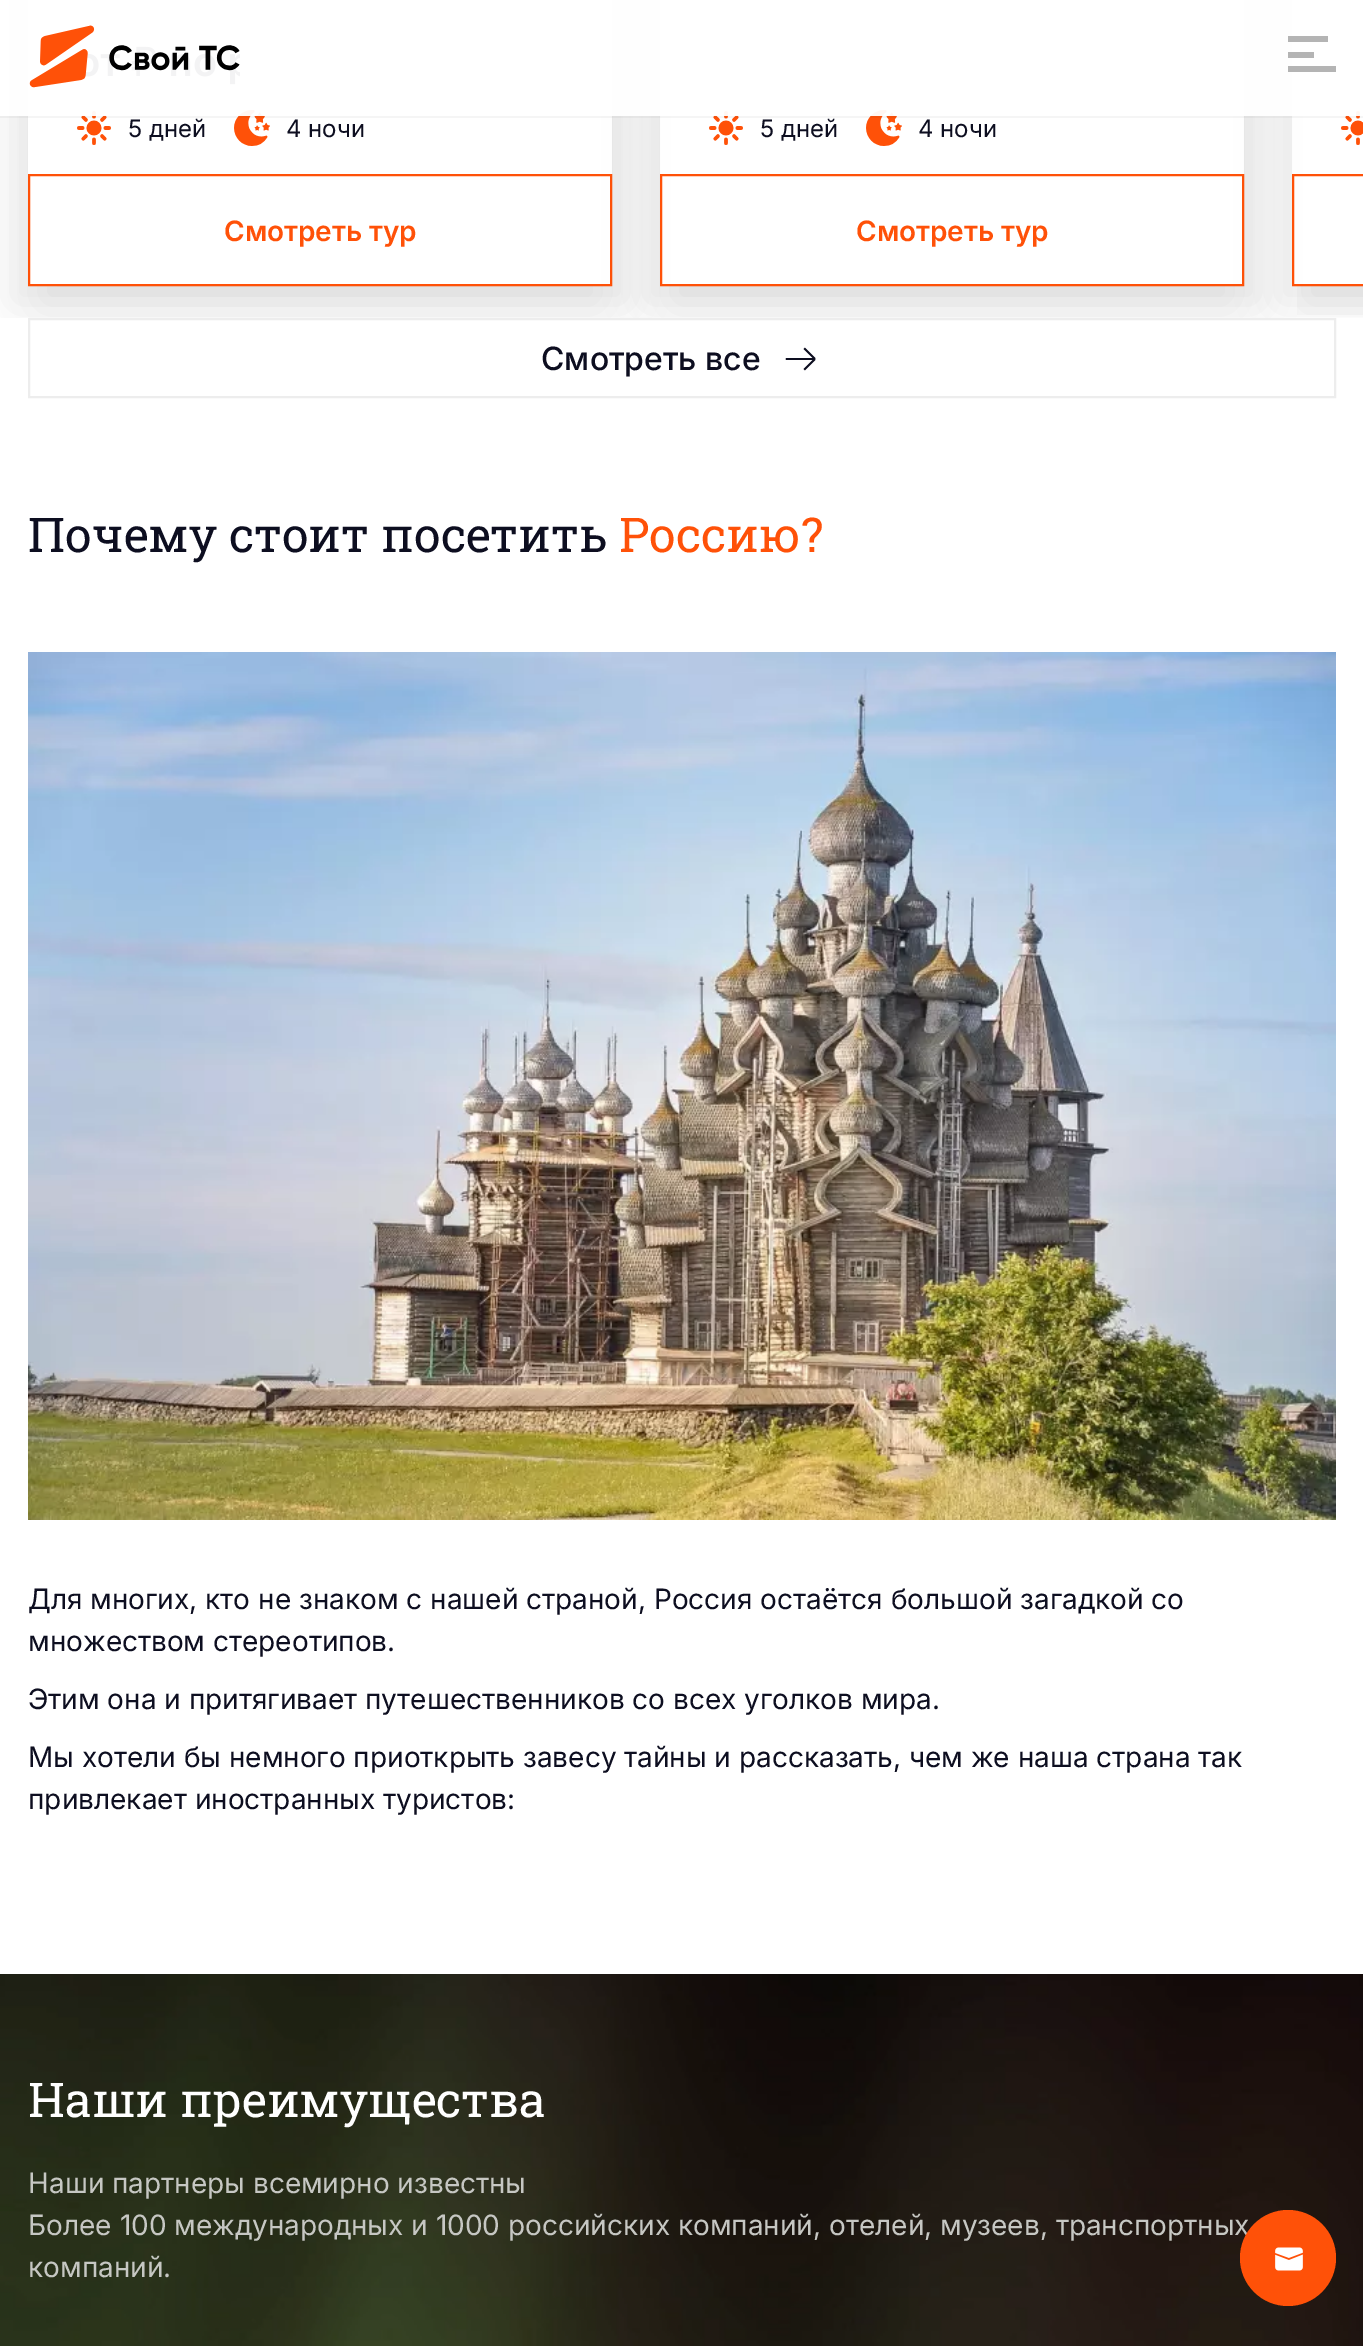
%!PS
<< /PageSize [1363 2346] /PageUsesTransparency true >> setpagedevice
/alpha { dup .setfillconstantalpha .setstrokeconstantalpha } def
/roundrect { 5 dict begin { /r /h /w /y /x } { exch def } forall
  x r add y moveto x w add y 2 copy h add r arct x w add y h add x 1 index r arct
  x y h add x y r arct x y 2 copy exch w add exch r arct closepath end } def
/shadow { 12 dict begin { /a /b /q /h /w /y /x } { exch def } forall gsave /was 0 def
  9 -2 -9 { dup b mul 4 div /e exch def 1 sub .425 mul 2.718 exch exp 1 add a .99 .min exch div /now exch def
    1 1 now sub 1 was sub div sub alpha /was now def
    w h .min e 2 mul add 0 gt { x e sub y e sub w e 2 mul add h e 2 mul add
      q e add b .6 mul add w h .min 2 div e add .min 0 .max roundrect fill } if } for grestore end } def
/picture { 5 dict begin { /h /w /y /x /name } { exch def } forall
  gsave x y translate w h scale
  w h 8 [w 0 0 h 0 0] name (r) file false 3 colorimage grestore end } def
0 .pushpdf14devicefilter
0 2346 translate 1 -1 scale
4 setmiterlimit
1 setgray
0 0 1363 2346 rectfill
0.929 setgray
2 setlinewidth
29 319 1306 78 rectstroke
gsave
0 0 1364 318 rectclip
newpath 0 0 moveto 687 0 lineto 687 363 lineto 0 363 lineto closepath 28 -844 moveto 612 -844 lineto 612 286 lineto 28 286 lineto closepath eoclip newpath
0.067 setgray
42 -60 584 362 0 20 0.08 shadow
grestore
gsave
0 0 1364 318 rectclip
newpath 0 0 moveto 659 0 lineto 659 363 lineto 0 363 lineto closepath 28 -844 moveto 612 -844 lineto 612 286 lineto 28 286 lineto closepath eoclip newpath
0.067 setgray
14 -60 584 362 0 20 0.08 shadow
grestore
(img2.rgb) 77 111 34 34 picture
(img3.rgb) 234 110 36 36 picture
(img5.rgb) 785 347 31 24 picture
gsave
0 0 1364 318 rectclip
newpath 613 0 moveto 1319 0 lineto 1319 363 lineto 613 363 lineto closepath 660 -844 moveto 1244 -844 lineto 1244 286 lineto 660 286 lineto closepath eoclip newpath
0.067 setgray
674 -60 584 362 0 20 0.08 shadow
grestore
1 0.318 0.031 setrgbcolor
29 175 582 110 rectstroke
gsave
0 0 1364 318 rectclip
newpath 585 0 moveto 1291 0 lineto 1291 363 lineto 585 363 lineto closepath 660 -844 moveto 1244 -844 lineto 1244 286 lineto 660 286 lineto closepath eoclip newpath
0.067 setgray
646 -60 584 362 0 20 0.08 shadow
grestore
(img2.rgb) 709 111 34 34 picture
(img3.rgb) 866 110 36 36 picture
gsave
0 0 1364 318 rectclip
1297 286 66 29 rectclip
0.067 setgray
1306 -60 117 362 0 20 0.08 shadow
grestore
661 175 582 110 rectstroke
gsave
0 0 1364 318 rectclip
newpath 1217 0 moveto 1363 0 lineto 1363 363 lineto 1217 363 lineto closepath 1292 -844 moveto 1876 -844 lineto 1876 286 lineto 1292 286 lineto closepath eoclip newpath
0.067 setgray
1278 -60 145 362 0 20 0.08 shadow
grestore
(img4.rgb) 1341 111 22 34 picture
0.04 alpha
0 setgray
0 116 1363 2 rectfill
0.95 alpha
1 setgray
0 0 1360 116 rectfill
1 alpha
(img1.rgb) 29 25 211 63 picture
0.706 setgray
1288 52 26 6 rectfill
1288 36 40 6 rectfill
1288 66 48 6 rectfill
/Inter-Regular [24 0 0 -24 0 0] selectfont
0.051 0.055 0.125 setrgbcolor
128 137 moveto (5 дней) show
286 137 moveto (4 ночи) show
/Inter-SemiBold [28 0 0 -28 0 0] selectfont
1 0.318 0.031 setrgbcolor
224 241 moveto (Смотреть тур) show
/Inter-Regular [24 0 0 -24 0 0] selectfont
0.051 0.055 0.125 setrgbcolor
760 137 moveto (5 дней) show
918 137 moveto (4 ночи) show
/Inter-SemiBold [28 0 0 -28 0 0] selectfont
1 0.318 0.031 setrgbcolor
856 241 moveto (Смотреть тур) show
1293 175 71 110 rectstroke
/Inter-Medium [32 0 0 -32 0 0] selectfont
0.051 0.055 0.125 setrgbcolor
541 370 moveto (Смотреть все) show
/RobotoSlab-Regular [48 0 0 -48 0 0] selectfont
28 552 moveto (Почему стоит посетить) show
1 0.318 0.031 setrgbcolor
619 552 moveto (Россию?) show
(img6.rgb) 28 652 1308 868 picture
/Inter-Regular [28 0 0 -28 0 0] selectfont
0.051 0.055 0.125 setrgbcolor
28 1609 moveto (Для многих, кто не знаком с нашей страной, Россия остаётся большой загадкой со) show
28 1651 moveto (множеством стереотипов.) show
28 1709 moveto (Этим она и притягивает путешественников со всех уголков мира.) show
28 1767 moveto (Мы хотели бы немного приоткрыть завесу тайны и рассказать, чем же наша страна так) show
28 1809 moveto (привлекает иностранных туристов:) show
(img7.rgb) 0 1974 1363 372 picture
/RobotoSlab-Regular [48 0 0 -48 0 0] selectfont
1 setgray
28 2117 moveto (Наши преимущества) show
/Inter-Regular [28 0 0 -28 0 0] selectfont
0.776 0.78 0.765 setrgbcolor
28 2193 moveto (Наши партнеры всемирно известны) show
28 2235 moveto (Более 100 международных и 1000 российских компаний, отелей, музеев, транспортных) show
28 2277 moveto (компаний.) show
1 0.318 0.031 setrgbcolor
newpath 1288 2258 48 0 360 arc closepath fill
(img8.rgb) 1275 2247 28 24 picture
.poppdf14devicefilter showpage
